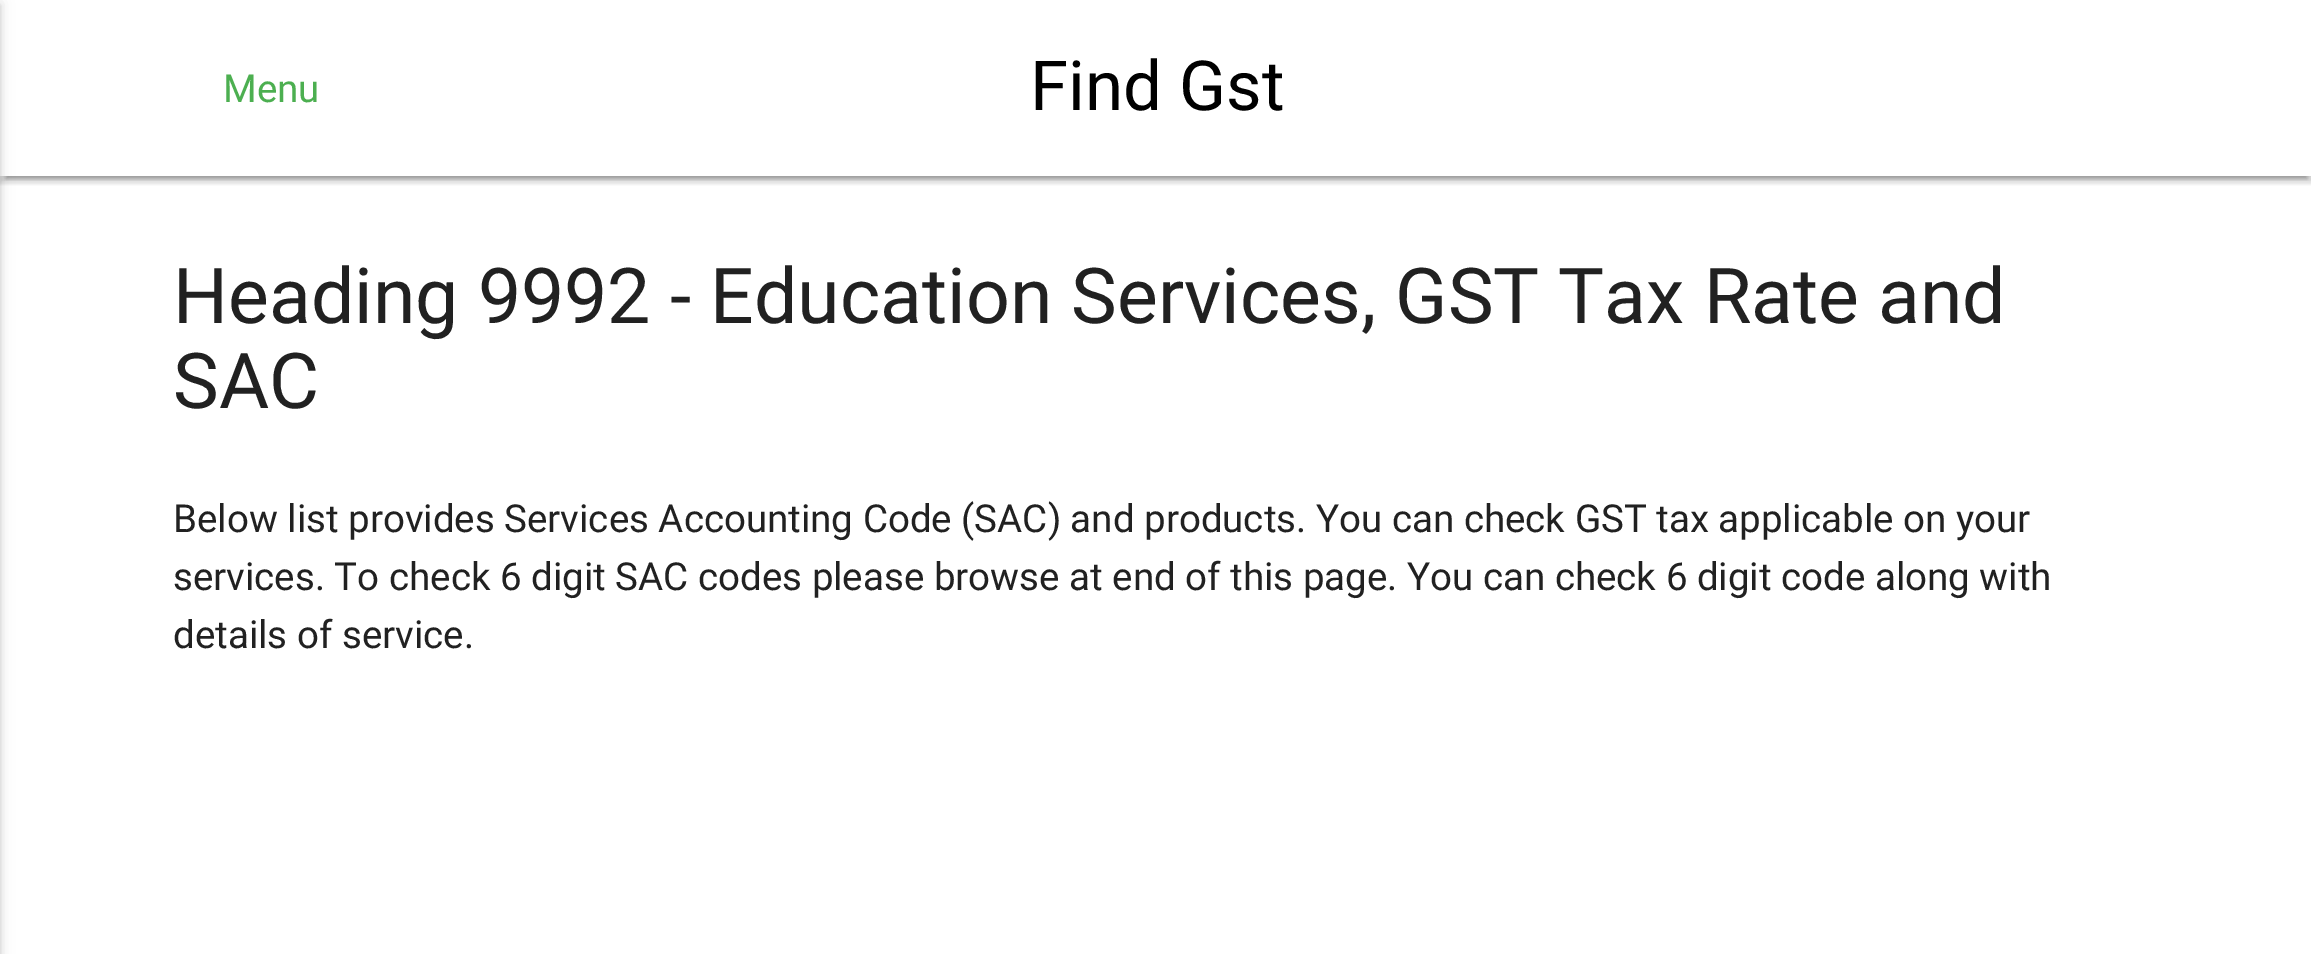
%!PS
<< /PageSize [2311 954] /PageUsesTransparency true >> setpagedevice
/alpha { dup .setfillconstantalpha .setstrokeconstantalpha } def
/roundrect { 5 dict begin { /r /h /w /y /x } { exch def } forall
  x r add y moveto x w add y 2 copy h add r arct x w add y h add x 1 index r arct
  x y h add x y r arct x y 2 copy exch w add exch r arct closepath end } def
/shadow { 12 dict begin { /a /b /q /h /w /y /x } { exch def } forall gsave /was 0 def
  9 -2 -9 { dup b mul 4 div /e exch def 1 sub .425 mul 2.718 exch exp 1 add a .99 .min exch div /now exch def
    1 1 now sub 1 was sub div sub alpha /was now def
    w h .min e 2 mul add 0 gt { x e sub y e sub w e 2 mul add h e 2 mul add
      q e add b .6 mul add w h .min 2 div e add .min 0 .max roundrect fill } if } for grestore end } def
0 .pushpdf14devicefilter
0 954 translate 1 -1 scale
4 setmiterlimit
1 setgray
0 0 2311 954 rectfill
0 setgray
-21 3 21 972 0 7 0.12 shadow
-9 6 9 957 0 3 0.14 shadow
gsave
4 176 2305 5 rectclip
6 14 2301 165 0 1.5 0.2 shadow
grestore
gsave
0 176 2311 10 rectclip
0 3 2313 176 0 7 0.12 shadow
grestore
gsave
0 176 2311 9 rectclip
0 6 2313 176 0 3 0.14 shadow
grestore
/Roboto-Regular [38.5 0 0 -38.5 0 0] selectfont
0.298 0.686 0.314 setrgbcolor
223 102 moveto (Menu) show
/Roboto-Regular [69 0 0 -69 0 0] selectfont
0 setgray
1030 110 moveto (Find Gst) show
/Roboto-Regular [77 0 0 -77 0 0] selectfont
0.129 setgray
173 323 moveto (Heading 9992 - Education Services, GST Tax Rate and) show
173 408 moveto (SAC) show
/Roboto-Regular [38.5 0 0 -38.5 0 0] selectfont
173 532 moveto (Below list provides Services Accounting Code \(SAC\) and products. You can check GST tax applicable on your) show
173 590 moveto (services. To check 6 digit SAC codes please browse at end of this page. You can check 6 digit code along with) show
173 648 moveto (details of service.) show
.poppdf14devicefilter showpage
